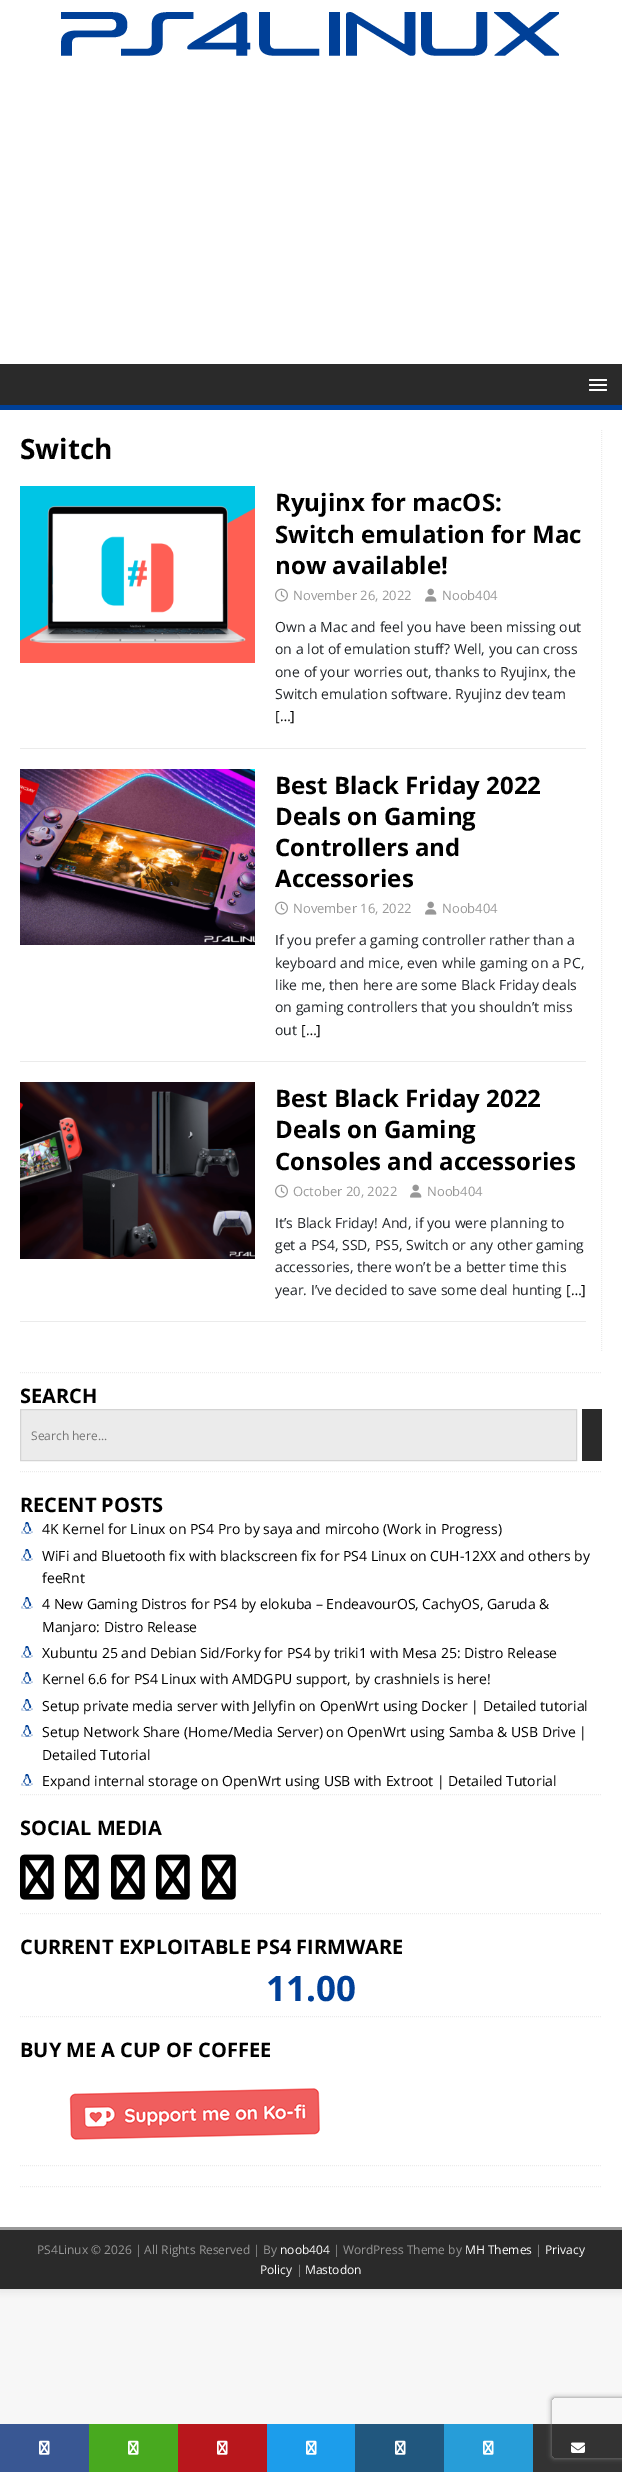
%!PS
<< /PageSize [622 2472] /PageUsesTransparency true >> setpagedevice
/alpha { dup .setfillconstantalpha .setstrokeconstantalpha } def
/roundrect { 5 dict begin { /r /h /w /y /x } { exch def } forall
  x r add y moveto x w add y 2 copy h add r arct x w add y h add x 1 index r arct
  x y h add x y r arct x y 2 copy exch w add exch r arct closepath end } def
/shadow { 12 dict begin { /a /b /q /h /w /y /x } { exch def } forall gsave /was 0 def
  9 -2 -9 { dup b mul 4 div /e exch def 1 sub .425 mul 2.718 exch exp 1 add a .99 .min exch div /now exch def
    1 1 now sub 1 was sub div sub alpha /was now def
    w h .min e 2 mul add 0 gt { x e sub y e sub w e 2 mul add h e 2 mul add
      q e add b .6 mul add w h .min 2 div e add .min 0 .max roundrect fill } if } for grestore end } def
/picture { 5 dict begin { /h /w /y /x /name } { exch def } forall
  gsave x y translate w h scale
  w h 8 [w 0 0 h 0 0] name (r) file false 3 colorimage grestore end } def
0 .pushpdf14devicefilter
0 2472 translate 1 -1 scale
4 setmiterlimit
0.969 setgray
0 0 622 2472 rectfill
0.196 setgray
0 0 622 2289 0 5 0.17 shadow
1 setgray
0 0 622 364 rectfill
(img1.rgb) 61 12 498 44 picture
0.165 setgray
0 364 622 41 rectfill
0 0.251 0.596 setrgbcolor
0 405 622 5 rectfill
1 setgray
589 379 18 2 1 roundrect fill
589 384 18 2 1 roundrect fill
589 389 18 2 1 roundrect fill
0 410 622 1817 rectfill
0.922 setgray
[1 1] 0 setdash
newpath 601.5 430 moveto 601.5 1352 lineto stroke
/OpenSans-Bold [28 0 0 -28 0 0] selectfont
0 setgray
20 459 moveto (Switch) show
0.922 setgray
20 748 566 1 rectfill
(img2.rgb) 20 486 235 177 picture
/OpenSans-Bold [24 0 0 -24 0 0] selectfont
0 setgray
275 511 moveto (Ryujinx for macOS:) show
275 543 moveto (Switch emulation for Mac) show
275 574 moveto (now available!) show
(img3.rgb) 275 588 13 14 picture
/OpenSans-Regular [13 0 0 -13 0 0] selectfont
0.592 setgray
293 600 moveto (November 26, 2022) show
(img4.rgb) 425 588 12 14 picture
442 600 moveto (Noob404) show
/OpenSans-Regular [14 0 0 -14 0 0] selectfont
0.129 0.145 0.161 setrgbcolor
275 632 moveto (Own a Mac and feel you have been missing out) show
275 654 moveto (on a lot of emulation stuff? Well, you can cross) show
275 677 moveto (one of your worries out, thanks to Ryujinx, the) show
275 699 moveto (Switch emulation software. Ryujinz dev team) show
0 setgray
275 721 moveto ([…]) show
0.922 setgray
20 1061 566 1 rectfill
(img5.rgb) 20 769 235 176 picture
/OpenSans-Bold [24 0 0 -24 0 0] selectfont
0 setgray
275 794 moveto (Best Black Friday 2022) show
275 825 moveto (Deals on Gaming) show
275 856 moveto (Controllers and) show
275 887 moveto (Accessories) show
(img3.rgb) 275 901 13 14 picture
/OpenSans-Regular [13 0 0 -13 0 0] selectfont
0.592 setgray
293 913 moveto (November 16, 2022) show
(img4.rgb) 425 901 12 14 picture
442 913 moveto (Noob404) show
/OpenSans-Regular [14 0 0 -14 0 0] selectfont
0.129 0.145 0.161 setrgbcolor
275 945 moveto (If you prefer a gaming controller rather than a) show
275 968 moveto (keyboard and mice, even while gaming on a PC,) show
275 990 moveto (like me, then here are some Black Friday deals) show
275 1012 moveto (on gaming controllers that you shouldn’t miss) show
275 1035 moveto (out) show
0 setgray
301 1035 moveto ([…]) show
0.922 setgray
20 1321 566 1 rectfill
(img6.rgb) 20 1082 235 177 picture
/OpenSans-Bold [24 0 0 -24 0 0] selectfont
0 setgray
275 1107 moveto (Best Black Friday 2022) show
275 1138 moveto (Deals on Gaming) show
275 1170 moveto (Consoles and accessories) show
(img3.rgb) 275 1184 13 14 picture
/OpenSans-Regular [13 0 0 -13 0 0] selectfont
0.592 setgray
293 1196 moveto (October 20, 2022) show
(img4.rgb) 410 1184 12 14 picture
427 1196 moveto (Noob404) show
/OpenSans-Regular [14 0 0 -14 0 0] selectfont
0.129 0.145 0.161 setrgbcolor
275 1228 moveto (It’s Black Friday! And, if you were planning to) show
275 1250 moveto (get a PS4, SSD, PS5, Switch or any other gaming) show
275 1272 moveto (accessories, there won’t be a better time this) show
275 1295 moveto (year. I’ve decided to save some deal hunting) show
0 setgray
566 1295 moveto ([…]) show
0.922 setgray
newpath 20 1372.5 moveto 602 1372.5 lineto stroke
newpath 20 1471.5 moveto 602 1471.5 lineto stroke
/OpenSans-Bold [20 0 0 -20 0 0] selectfont
0 setgray
20 1403 moveto (SEARCH) show
0.922 setgray
newpath 20.5 1409.5 moveto 576.5 1409.5 lineto 576.5 1460.5 lineto 20.5 1460.5 lineto closepath gsave fill grestore
0.831 setgray
[] 0 setdash
stroke
/OpenSans-Regular [12 0 0 -12 0 0] selectfont
0.459 setgray
31 1440 moveto (Search here...) show
0.165 setgray
582 1409 20 52 rectfill
0.922 setgray
[1 1] 0 setdash
newpath 20 1794.5 moveto 602 1794.5 lineto stroke
/OpenSans-Bold [20 0 0 -20 0 0] selectfont
0 setgray
20 1512 moveto (RECENT POSTS) show
(img7.rgb) 21 1522 12 12 picture
/OpenSans-Regular [14 0 0 -14 0 0] selectfont
42 1534 moveto (4K Kernel for Linux on PS4 Pro by saya and mircoho \(Work in Progress\)) show
(img7.rgb) 21 1549 12 12 picture
42 1561 moveto (WiFi and Bluetooth fix with blackscreen fix for PS4 Linux on CUH-12XX and others by) show
42 1583 moveto (feeRnt) show
(img7.rgb) 21 1597 12 12 picture
42 1609 moveto (4 New Gaming Distros for PS4 by elokuba – EndeavourOS, CachyOS, Garuda &) show
42 1632 moveto (Manjaro: Distro Release) show
(img7.rgb) 21 1646 12 12 picture
42 1658 moveto (Xubuntu 25 and Debian Sid/Forky for PS4 by triki1 with Mesa 25: Distro Release) show
(img7.rgb) 21 1672 12 12 picture
42 1684 moveto (Kernel 6.6 for PS4 Linux with AMDGPU support, by crashniels is here!) show
(img7.rgb) 21 1699 12 12 picture
42 1711 moveto (Setup private media server with Jellyfin on OpenWrt using Docker | Detailed tutorial) show
(img7.rgb) 21 1725 12 12 picture
42 1737 moveto (Setup Network Share \(Home/Media Server\) on OpenWrt using Samba & USB Drive |) show
42 1760 moveto (Detailed Tutorial) show
(img7.rgb) 21 1774 12 12 picture
42 1786 moveto (Expand internal storage on OpenWrt using USB with Extroot | Detailed Tutorial) show
0.922 setgray
newpath 20 1913.5 moveto 602 1913.5 lineto stroke
/OpenSans-Bold [20 0 0 -20 0 0] selectfont
0 setgray
20 1835 moveto (SOCIAL MEDIA) show
(img8.rgb) 20 1854 34 46 picture
(img8.rgb) 65 1854 34 46 picture
(img8.rgb) 111 1854 34 46 picture
(img8.rgb) 156 1854 34 46 picture
(img8.rgb) 202 1854 34 46 picture
0.922 setgray
newpath 20 2016.5 moveto 602 2016.5 lineto stroke
0 setgray
20 1954 moveto (CURRENT EXPLOITABLE PS4 FIRMWARE) show
/OpenSans-Bold [35 0 0 -35 0 0] selectfont
0 0.251 0.596 setrgbcolor
266 2001 moveto (11.00) show
0.922 setgray
newpath 20 2165.5 moveto 602 2165.5 lineto stroke
/OpenSans-Bold [20 0 0 -20 0 0] selectfont
0 setgray
20 2057 moveto (BUY ME A CUP OF COFFEE) show
(img9.rgb) 69 2088 251 52 picture
0.922 setgray
newpath 20 2186.5 moveto 602 2186.5 lineto stroke
0.165 setgray
0 2230 622 59 rectfill
0.6 setgray
0 2227 622 3 rectfill
/OpenSans-Regular [12 0 0 -12 0 0] selectfont
0.592 setgray
37 2254 moveto (PS4Linux © 2026 | All Rights Reserved | By) show
1 setgray
280 2254 moveto (noob404) show
0.592 setgray
333 2254 moveto (| WordPress Theme by) show
1 setgray
465 2254 moveto (MH Themes) show
0.592 setgray
535 2254 moveto (|) show
1 setgray
545 2254 moveto (Privacy) show
260 2274 moveto (Policy) show
0.592 setgray
296 2274 moveto (|) show
1 setgray
305 2274 moveto (Mastodon) show
0.2 setgray
533 2424 89 48 rectfill
(img16.rgb) 571 2442 14 11 picture
gsave
newpath 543 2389 moveto 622 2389 lineto 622 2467 lineto 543 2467 lineto closepath 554 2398 moveto 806 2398 lineto 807 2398 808 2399 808 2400 curveto 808 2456 lineto 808 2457 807 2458 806 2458 curveto 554 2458 lineto 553 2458 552 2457 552 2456 curveto 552 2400 lineto 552 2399 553 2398 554 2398 curveto closepath eoclip newpath
0.502 setgray
552 2398 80 60 2 2.5 1 shadow
grestore
0.224 0.341 0.576 setrgbcolor
0 2424 89 48 rectfill
(img10.rgb) 39 2440 11 15 picture
0.282 0.663 0.122 setrgbcolor
89 2424 89 48 rectfill
(img11.rgb) 128 2440 11 15 picture
0.722 0.09 0.11 setrgbcolor
178 2424 89 48 rectfill
(img12.rgb) 217 2440 11 15 picture
0.11 0.616 0.922 setrgbcolor
267 2424 88 48 rectfill
(img13.rgb) 306 2440 11 15 picture
0.129 0.341 0.494 setrgbcolor
355 2424 89 48 rectfill
(img14.rgb) 395 2440 11 15 picture
0.153 0.616 0.847 setrgbcolor
444 2424 89 48 rectfill
(img15.rgb) 483 2440 11 15 picture
.poppdf14devicefilter showpage
